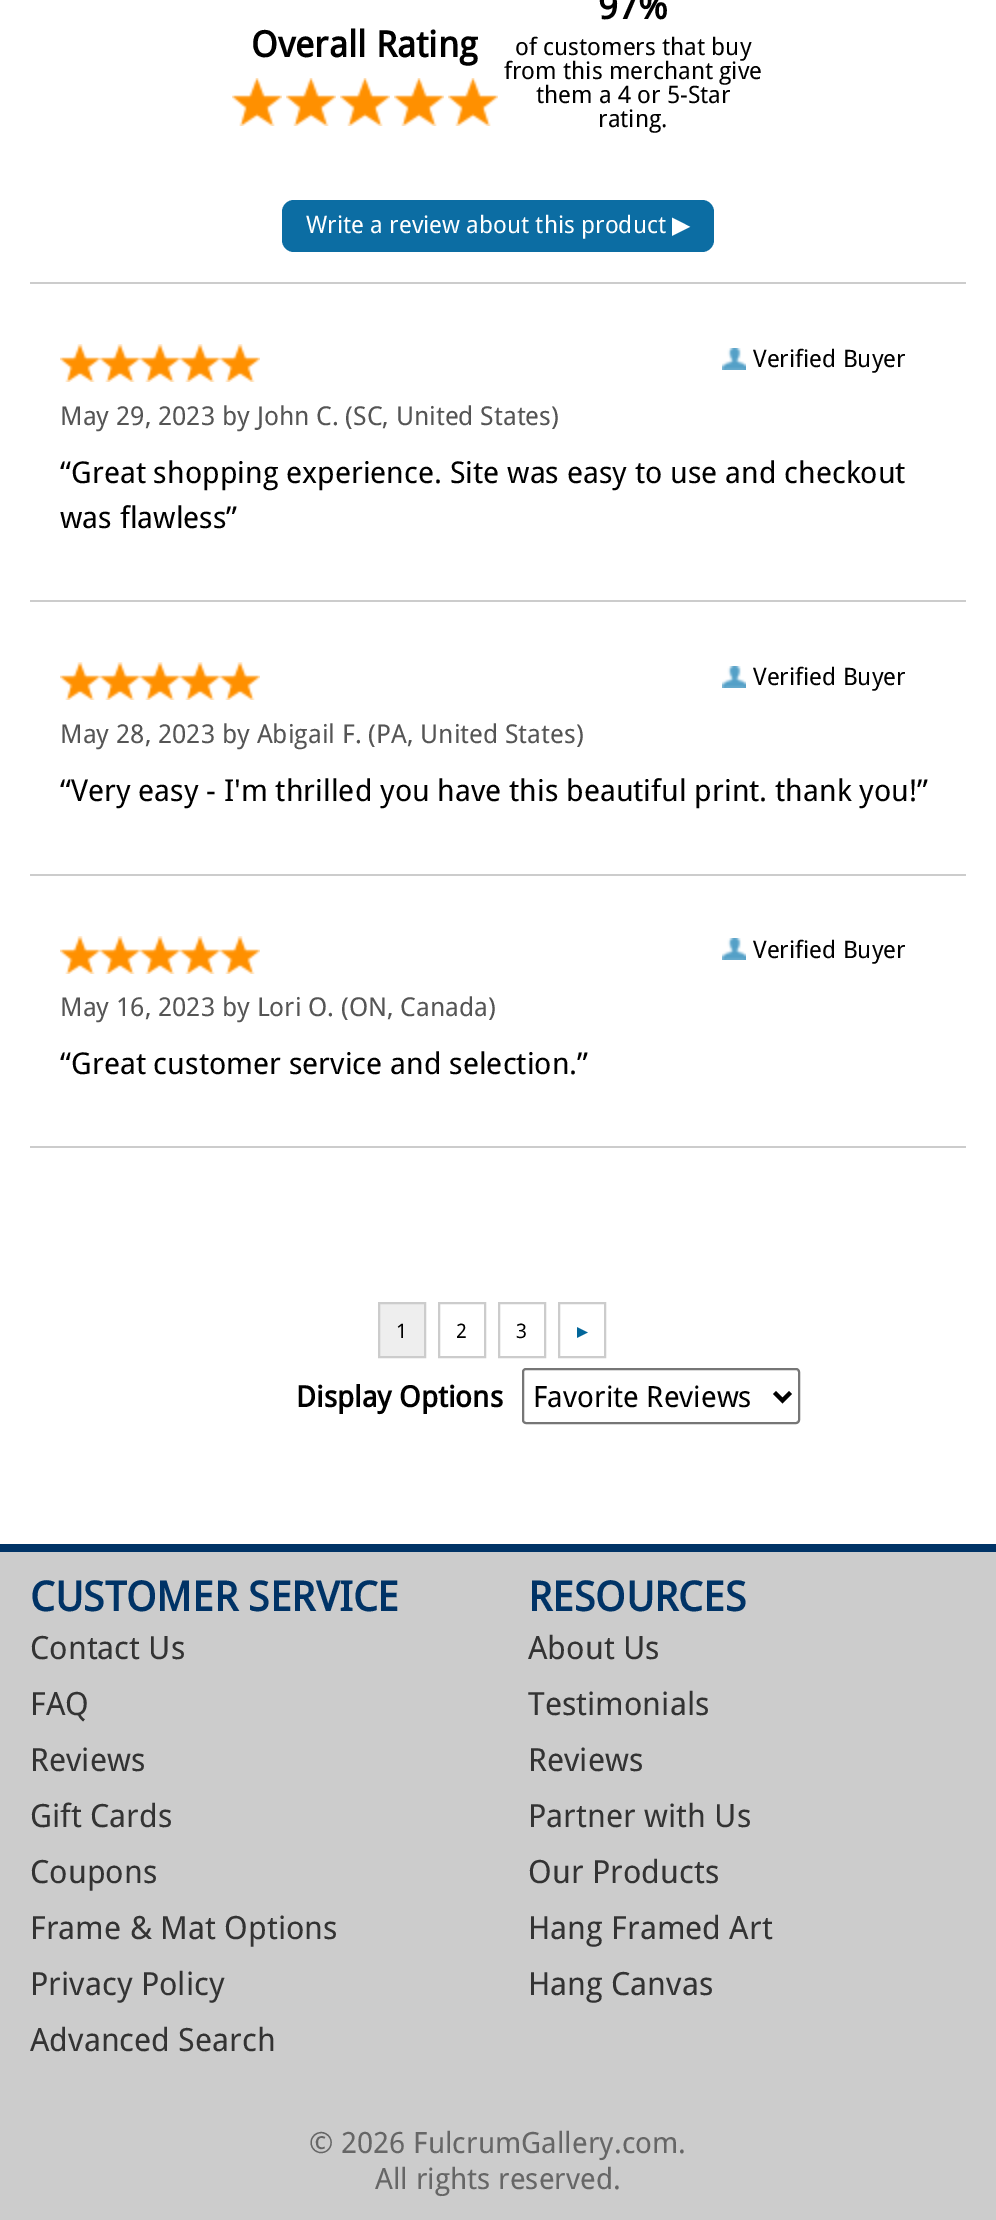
%!PS
<< /PageSize [996 2220] >> setpagedevice
/roundrect { 5 dict begin { /r /h /w /y /x } { exch def } forall
  x r add y moveto x w add y 2 copy h add r arct x w add y h add x 1 index r arct
  x y h add x y r arct x y 2 copy exch w add exch r arct closepath end } def
/picture { 5 dict begin { /h /w /y /x /name } { exch def } forall
  gsave x y translate w h scale
  w h 8 [w 0 0 h 0 0] name (r) file false 3 colorimage grestore end } def
0 2220 translate 1 -1 scale
4 setmiterlimit
0.8 setgray
0 0 996 2220 rectfill
1 setgray
0 0 996 1544 rectfill
0.8 setgray
30 282 936 2 rectfill
/DroidSans-Bold [36 0 0 -36 0 0] selectfont
0 setgray
251 57 moveto (Overall Rating) show
(img1.rgb) 232 78 50 48 picture
(img1.rgb) 286 78 50 48 picture
(img1.rgb) 340 78 50 48 picture
(img1.rgb) 394 78 50 48 picture
(img1.rgb) 448 78 50 48 picture
598 19 moveto (97%) show
/DroidSans-Regular [24 0 0 -24 0 0] selectfont
515 55 moveto (of customers that buy) show
504 79 moveto (from this merchant give) show
536 103 moveto (them a 4 or 5-Star) show
598 127 moveto (rating.) show
0.047 0.427 0.639 setrgbcolor
282 200 432 52 12 roundrect fill
1 setgray
306 233 moveto (Write a review about this product) show
/DejaVuSans-Regular [24 0 0 -24 0 0] selectfont
672 233 moveto (▶) show
0.8 setgray
30 600 936 2 rectfill
(img2.rgb) 60 344 40 38 picture
(img2.rgb) 100 344 40 38 picture
(img2.rgb) 140 344 40 38 picture
(img2.rgb) 180 344 40 38 picture
(img2.rgb) 220 344 40 38 picture
(img3.rgb) 722 348 24 22 picture
/DroidSans-Regular [24 0 0 -24 0 0] selectfont
0 setgray
753 367 moveto (Verified Buyer) show
/DroidSans-Regular [26 0 0 -26 0 0] selectfont
0.333 setgray
60 425 moveto (May 29, 2023 by John C. \(SC, United States\)) show
/DroidSans-Regular [30 0 0 -30 0 0] selectfont
0 setgray
60 483 moveto (“Great shopping experience. Site was easy to use and checkout) show
60 528 moveto (was flawless”) show
0.8 setgray
30 874 936 2 rectfill
(img2.rgb) 60 662 40 38 picture
(img2.rgb) 100 662 40 38 picture
(img2.rgb) 140 662 40 38 picture
(img2.rgb) 180 662 40 38 picture
(img2.rgb) 220 662 40 38 picture
(img3.rgb) 722 666 24 22 picture
/DroidSans-Regular [24 0 0 -24 0 0] selectfont
0 setgray
753 685 moveto (Verified Buyer) show
/DroidSans-Regular [26 0 0 -26 0 0] selectfont
0.333 setgray
60 743 moveto (May 28, 2023 by Abigail F. \(PA, United States\)) show
/DroidSans-Regular [30 0 0 -30 0 0] selectfont
0 setgray
60 801 moveto (“Very easy - I'm thrilled you have this beautiful print. thank you!”) show
0.8 setgray
30 1146 936 2 rectfill
(img2.rgb) 60 936 40 38 picture
(img2.rgb) 100 936 40 38 picture
(img2.rgb) 140 936 40 38 picture
(img2.rgb) 180 936 40 38 picture
(img2.rgb) 220 936 40 38 picture
(img3.rgb) 722 938 24 22 picture
/DroidSans-Regular [24 0 0 -24 0 0] selectfont
0 setgray
753 958 moveto (Verified Buyer) show
/DroidSans-Regular [26 0 0 -26 0 0] selectfont
0.333 setgray
60 1016 moveto (May 16, 2023 by Lori O. \(ON, Canada\)) show
/DroidSans-Regular [30 0 0 -30 0 0] selectfont
0 setgray
60 1074 moveto (“Great customer service and selection.”) show
0.933 setgray
newpath 379 1303 moveto 425 1303 lineto 425 1357 lineto 379 1357 lineto closepath gsave fill grestore
0.8 setgray
2 setlinewidth
stroke
/DroidSans-Regular [20 0 0 -20 0 0] selectfont
0 setgray
396 1338 moveto (1) show
0.8 setgray
439 1303 46 54 rectstroke
0 setgray
456 1338 moveto (2) show
0.8 setgray
499 1303 46 54 rectstroke
0 setgray
516 1338 moveto (3) show
0.8 setgray
559 1303 46 54 rectstroke
/DejaVuSans-Bold [20 0 0 -20 0 0] selectfont
0.008 0.4 0.604 setrgbcolor
577 1338 moveto (▸) show
/DroidSans-Bold [29.3 0 0 -29.3 0 0] selectfont
0 setgray
296 1407 moveto (Display Options) show
0.463 setgray
523 1369 276 54 3 roundrect stroke
0 setgray
4 setlinewidth
newpath 774.5 1392.5 moveto 782.5 1400.5 lineto 790.5 1392.5 lineto stroke
/DroidSans-Regular [29.3 0 0 -29.3 0 0] selectfont
533 1407 moveto (Favorite Reviews) show
0 0.2 0.4 setrgbcolor
0 1544 996 8 rectfill
/DroidSans-Bold [41 0 0 -41 0 0] selectfont
30 1611 moveto (CUSTOMER SERVICE) show
/DroidSans-Regular [32 0 0 -32 0 0] selectfont
0.2 setgray
30 1659 moveto (Contact Us) show
30 1715 moveto (FAQ) show
30 1771 moveto (Reviews) show
30 1827 moveto (Gift Cards) show
30 1883 moveto (Coupons) show
30 1939 moveto (Frame & Mat Options) show
30 1995 moveto (Privacy Policy) show
30 2051 moveto (Advanced Search) show
/DroidSans-Bold [41 0 0 -41 0 0] selectfont
0 0.2 0.4 setrgbcolor
528 1611 moveto (RESOURCES) show
/DroidSans-Regular [32 0 0 -32 0 0] selectfont
0.2 setgray
528 1659 moveto (About Us) show
528 1715 moveto (Testimonials) show
528 1771 moveto (Reviews) show
528 1827 moveto (Partner with Us) show
528 1883 moveto (Our Products) show
528 1939 moveto (Hang Framed Art) show
528 1995 moveto (Hang Canvas) show
/DroidSans-Regular [29.3 0 0 -29.3 0 0] selectfont
0.4 setgray
309 2153 moveto (© 2026 FulcrumGallery.com.) show
375 2189 moveto (All rights reserved.) show
showpage
